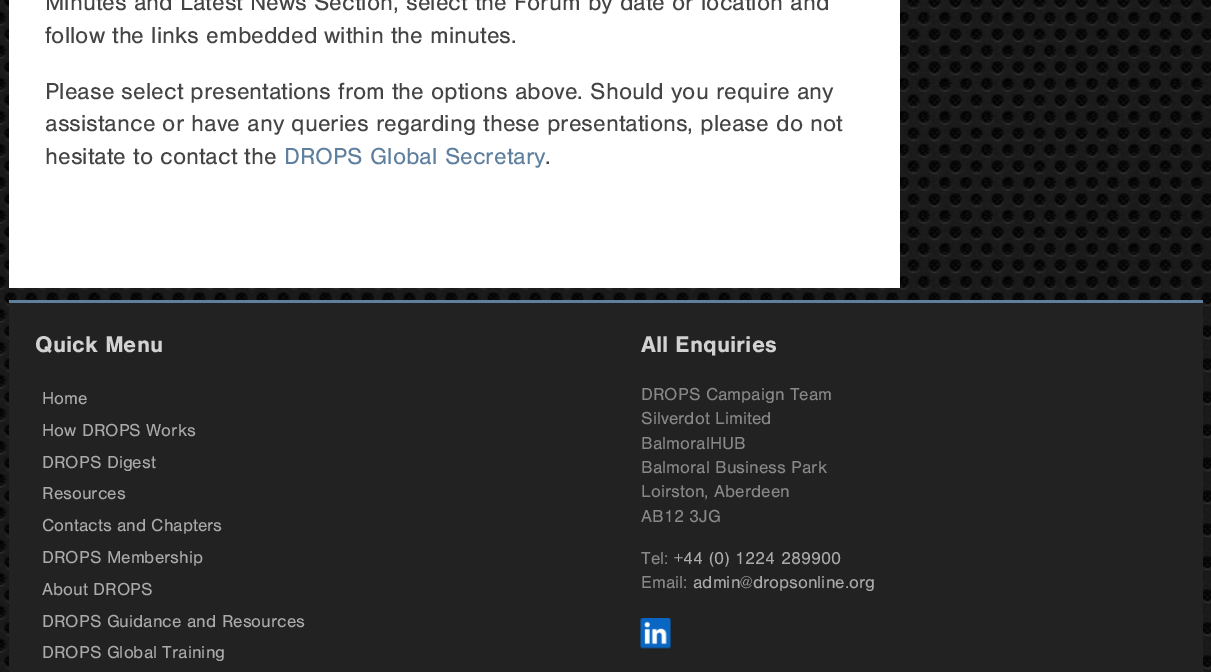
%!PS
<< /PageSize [1211 672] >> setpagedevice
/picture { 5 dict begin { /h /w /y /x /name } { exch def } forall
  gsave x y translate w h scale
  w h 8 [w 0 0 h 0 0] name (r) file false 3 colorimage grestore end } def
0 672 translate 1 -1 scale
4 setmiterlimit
1 setgray
0 0 1211 672 rectfill
(img1.rgb) 0 0 1211 672 picture
9 0 891 288 rectfill
/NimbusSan-Regular [24 0 0 -24 0 0] selectfont
0.267 setgray
45 10 moveto (Minutes and Latest News Section, select the Forum by date or location and) show
45 43 moveto (follow the links embedded within the minutes.) show
45 99 moveto (Please select presentations from the options above. Should you require any) show
45 131 moveto (assistance or have any queries regarding these presentations, please do not) show
45 164 moveto (hesitate to contact the) show
0.369 0.498 0.62 setrgbcolor
284 164 moveto (DROPS Global Secretary) show
0.267 setgray
545 164 moveto (.) show
0.133 setgray
9 303 1194 369 rectfill
0.369 0.498 0.62 setrgbcolor
9 300 1194 3 rectfill
/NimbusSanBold-Bold [23.5 0 0 -23.5 0 0] selectfont
0.824 setgray
35 352 moveto (Quick Menu) show
/NimbusSan-Regular [18 0 0 -18 0 0] selectfont
0.667 setgray
42 404 moveto (Home) show
42 436 moveto (How DROPS Works) show
42 468 moveto (DROPS Digest) show
42 499 moveto (Resources) show
42 531 moveto (Contacts and Chapters) show
42 563 moveto (DROPS Membership) show
42 595 moveto (About DROPS) show
42 627 moveto (DROPS Guidance and Resources) show
42 658 moveto (DROPS Global Training) show
/NimbusSanBold-Bold [23.5 0 0 -23.5 0 0] selectfont
0.824 setgray
641 352 moveto (All Enquiries) show
/NimbusSan-Regular [18 0 0 -18 0 0] selectfont
0.533 setgray
641 400 moveto (DROPS Campaign Team) show
641 424 moveto (Silverdot Limited) show
641 449 moveto (BalmoralHUB) show
641 473 moveto (Balmoral Business Park) show
641 497 moveto (Loirston, Aberdeen) show
641 522 moveto (AB12 3JG) show
641 564 moveto (Tel:) show
0.667 setgray
674 564 moveto (+44 \(0\) 1224 289900) show
0.533 setgray
641 588 moveto (Email:) show
0.667 setgray
693 588 moveto (admin@dropsonline.org) show
(img2.rgb) 640 618 31 31 picture
showpage
